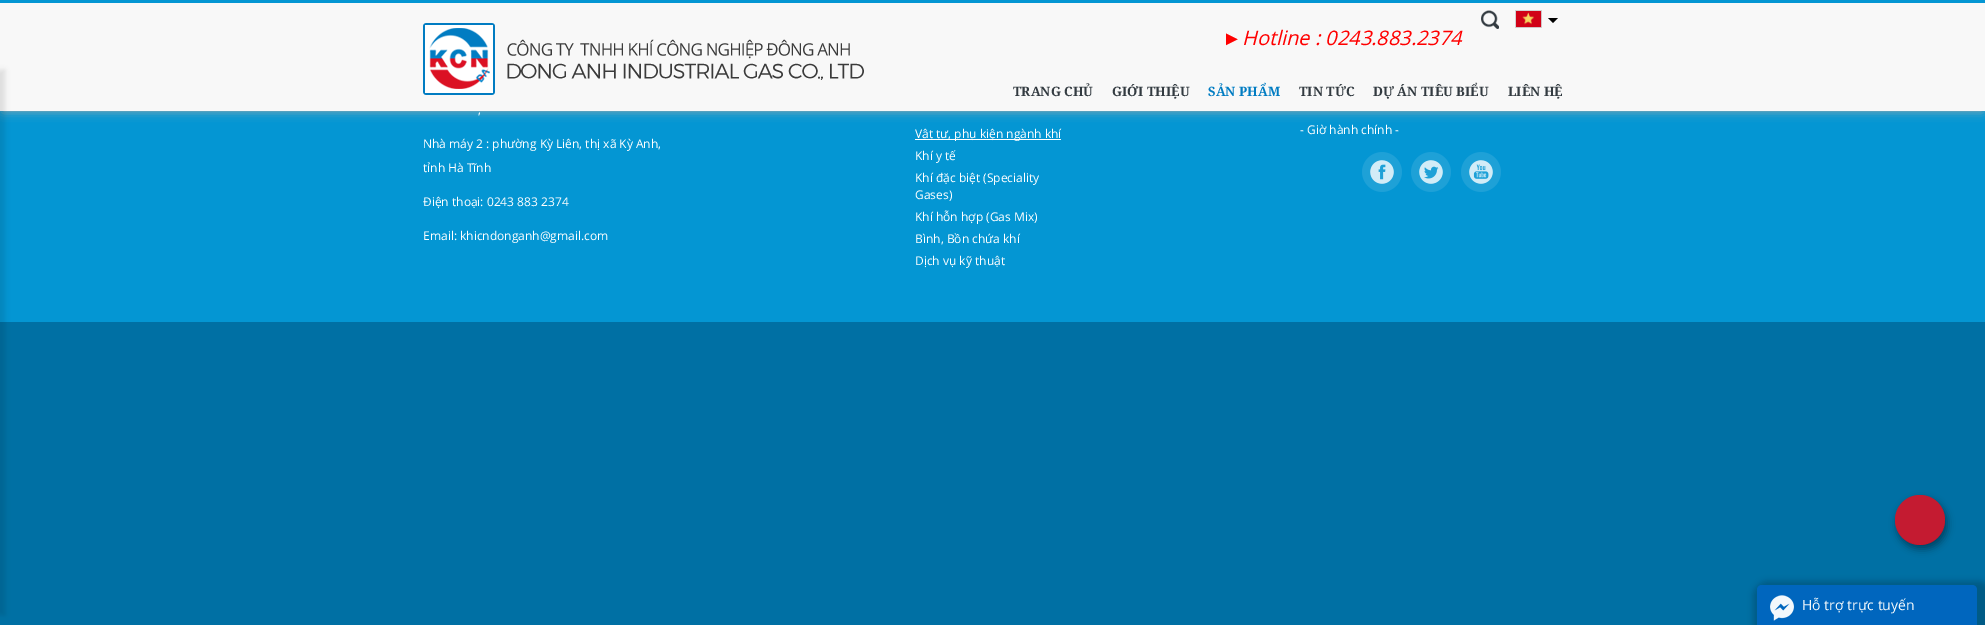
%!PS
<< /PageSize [1985 625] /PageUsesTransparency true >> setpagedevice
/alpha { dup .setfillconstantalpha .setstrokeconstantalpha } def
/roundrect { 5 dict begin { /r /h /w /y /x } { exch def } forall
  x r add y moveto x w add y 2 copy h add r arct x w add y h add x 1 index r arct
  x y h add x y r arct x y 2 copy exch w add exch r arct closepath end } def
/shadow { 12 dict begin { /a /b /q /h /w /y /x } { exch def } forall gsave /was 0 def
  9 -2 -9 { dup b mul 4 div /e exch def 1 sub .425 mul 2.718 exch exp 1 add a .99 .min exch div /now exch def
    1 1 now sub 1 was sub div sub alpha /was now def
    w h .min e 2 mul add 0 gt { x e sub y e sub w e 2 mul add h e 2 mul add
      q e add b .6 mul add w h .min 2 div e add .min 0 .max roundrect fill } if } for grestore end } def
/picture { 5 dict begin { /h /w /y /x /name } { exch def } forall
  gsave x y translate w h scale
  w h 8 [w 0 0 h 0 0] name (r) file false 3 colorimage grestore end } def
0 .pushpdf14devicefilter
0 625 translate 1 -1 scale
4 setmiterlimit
0 0.439 0.643 setrgbcolor
0 0 1985 625 rectfill
0.016 0.588 0.827 setrgbcolor
0 111 1985 211 rectfill
0.667 setgray
3 6 1979 105 0 5 1 shadow
0.973 setgray
0 3 1985 108 rectfill
0 setgray
-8 70 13 545 0 2.5 0.1 shadow
0.016 0.588 0.827 setrgbcolor
0 0 1985 3 rectfill
(img1.rgb) 1481 10 18 19 picture
(img2.rgb) 1515 10 27 18 picture
0 setgray
newpath 1548 18 moveto 1558 18 lineto 1553 23 lineto closepath fill
(img3.rgb) 423 23 441 72 picture
/LiberationSans-Italic [20 0 0 -20 0 0] selectfont
1 0 0 setrgbcolor
1222 45 moveto (►) show
/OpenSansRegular-Italic [20 0 0 -20 0 0] selectfont
1242 45 moveto (Hotline : 0243.883.2374) show
/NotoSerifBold-Bold [13 0 0 -13 0 0] selectfont
0.2 0.231 0.255 setrgbcolor
1013 96 moveto (TRANG CHỦ) show
1112 96 moveto (GIỚI THIỆU) show
0.004 0.486 0.761 setrgbcolor
1208 96 moveto (SẢN PHẨM) show
0.2 0.231 0.255 setrgbcolor
1299 96 moveto (TIN TỨC) show
1373 96 moveto (DỰ ÁN TIÊU BIỂU) show
1508 96 moveto (LIÊN HỆ) show
/OpenSansRegular-Regular [12 0 0 -12 0 0] selectfont
1 setgray
478 114 moveto (,) show
423 148 moveto (Nhà máy 2 : phường Kỳ Liên, thị xã Kỳ Anh,) show
423 172 moveto (tỉnh Hà Tĩnh) show
423 206 moveto (Điện thoại: 0243 883 2374) show
423 240 moveto (Email: khicndonganh@gmail.com) show
915 139 146 1 rectfill
915 138 moveto (Vật tư, phụ kiện ngành khí) show
915 160 moveto (Khí y tế) show
915 182 moveto (Khí đặc biệt \(Speciality) show
915 199 moveto (Gases\)) show
915 221 moveto (Khí hỗn hợp \(Gas Mix\)) show
915 243 moveto (Bình, Bồn chứa khí) show
915 265 moveto (Dịch vụ kỹ thuật) show
1300 134 moveto (- Giờ hành chính -) show
(img4.rgb) 1362 152 40 40 picture
(img5.rgb) 1411 152 40 40 picture
(img6.rgb) 1461 152 40 40 picture
0 0.02 0.031 setrgbcolor
1753 581 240 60 15 3 0.2 shadow
0 0.4 0.745 setrgbcolor
newpath 1762 585 moveto 1972 585 lineto 1975 585 1977 587 1977 590 curveto 1977 625 lineto 1757 625 lineto 1757 590 lineto 1757 587 1759 585 1762 585 curveto closepath fill
(img7.rgb) 1770 595 24 26 picture
/OpenSansRegular-Regular [14 0 0 -14 0 0] selectfont
0.953 0.973 0.984 setrgbcolor
1802 610 moveto (Hỗ trợ trực tuyến) show
gsave
newpath 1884 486 moveto 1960 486 lineto 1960 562 lineto 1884 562 lineto closepath 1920 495 moveto 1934 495 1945 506 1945 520 curveto 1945 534 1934 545 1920 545 curveto 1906 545 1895 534 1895 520 curveto 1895 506 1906 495 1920 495 curveto closepath eoclip newpath
0 0.004 0.004 setrgbcolor
1897 499 50 50 25 4 0.4 shadow
grestore
0.9 alpha
0.851 0.071 0.141 setrgbcolor
newpath 1920 520 25 0 360 arc closepath fill
.poppdf14devicefilter showpage
